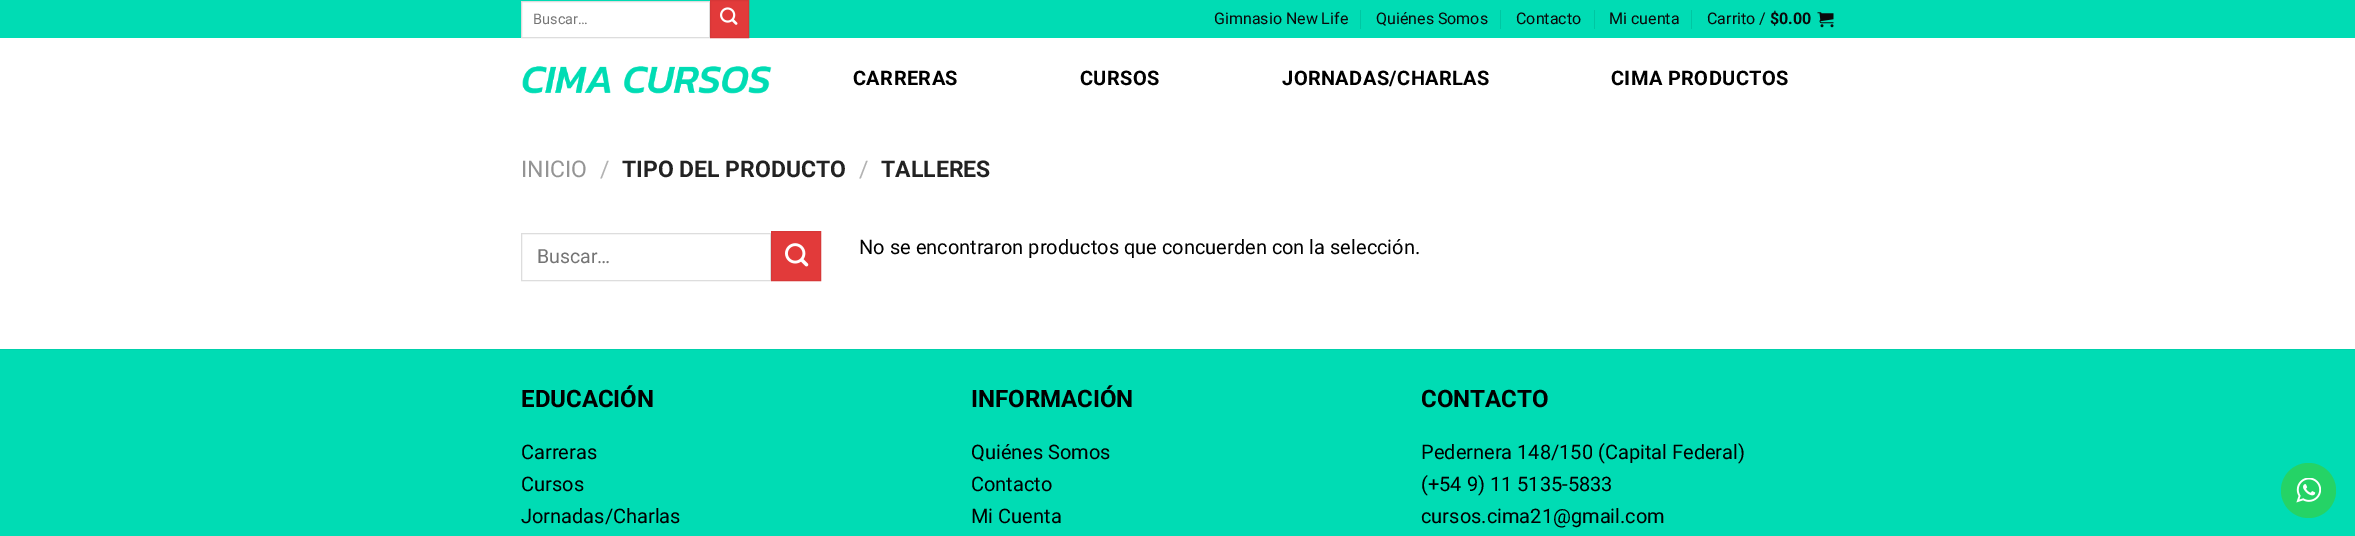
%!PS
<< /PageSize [2355 536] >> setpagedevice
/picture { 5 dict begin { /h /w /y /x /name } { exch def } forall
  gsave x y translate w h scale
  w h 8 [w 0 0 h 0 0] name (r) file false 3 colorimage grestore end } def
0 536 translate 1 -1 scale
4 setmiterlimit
1 setgray
0 0 2355 536 rectfill
0 0.863 0.706 setrgbcolor
0 0 2355 38 rectfill
1 setgray
newpath 521.5 1.5 moveto 709.5 1.5 lineto 709.5 37.5 lineto 521.5 37.5 lineto closepath gsave fill grestore
0.867 setgray
stroke
/Roboto-Regular [14.5 0 0 -14.5 0 0] selectfont
0.459 setgray
533 24 moveto (Buscar…) show
0.886 0.227 0.227 setrgbcolor
newpath 710.5 0.5 moveto 748.5 0.5 lineto 748.5 37.5 lineto 710.5 37.5 lineto closepath gsave fill grestore
0.843 0.216 0.216 setrgbcolor
stroke
(img1.rgb) 720 7 18 18 picture
/Roboto-Regular [16 0 0 -16 0 0] selectfont
0.039 setgray
1214 24 moveto (Gimnasio New Life) show
0 0.776 0.635 setrgbcolor
1360 10 1 19 rectfill
0.039 setgray
1376 24 moveto (Quiénes Somos) show
0 0.776 0.635 setrgbcolor
1500 10 1 19 rectfill
0.039 setgray
1516 24 moveto (Contacto) show
0 0.776 0.635 setrgbcolor
1594 10 1 19 rectfill
0.039 setgray
1609 24 moveto (Mi cuenta) show
0 0.776 0.635 setrgbcolor
1691 10 1 19 rectfill
0.039 setgray
1707 24 moveto (Carrito /) show
/Roboto-Bold [16 0 0 -16 0 0] selectfont
1770 24 moveto ($0.00) show
(img2.rgb) 1817 12 17 16 picture
(img3.rgb) 522 66 250 28 picture
/Roboto-Bold [20 0 0 -20 0 0] selectfont
0 setgray
853 85 moveto 0.4 0 (CARRERAS) ashow
1080 85 moveto 0.4 0 (CURSOS) ashow
1282 85 moveto 0.4 0 (JORNADAS/CHARLAS) ashow
1611 85 moveto 0.4 0 (CIMA PRODUCTOS) ashow
/Roboto-Regular [23 0 0 -23 0 0] selectfont
0.58 setgray
521 177 moveto (INICIO) show
0.698 setgray
600 177 moveto (/) show
/Roboto-Bold [23 0 0 -23 0 0] selectfont
0.133 setgray
622 177 moveto (TIPO DEL PRODUCTO) show
/Roboto-Regular [23 0 0 -23 0 0] selectfont
0.698 setgray
859 177 moveto (/) show
/Roboto-Bold [23 0 0 -23 0 0] selectfont
0.133 setgray
881 177 moveto (TALLERES) show
0.867 setgray
521.5 233.5 249 47 rectstroke
/Roboto-Regular [19.5 0 0 -19.5 0 0] selectfont
0.459 setgray
537 263 moveto (Buscar…) show
0.886 0.227 0.227 setrgbcolor
newpath 771.5 231.5 moveto 820.5 231.5 lineto 820.5 280.5 lineto 771.5 280.5 lineto closepath gsave fill grestore
0.843 0.216 0.216 setrgbcolor
stroke
(img4.rgb) 785 243 24 24 picture
/Roboto-Regular [20 0 0 -20 0 0] selectfont
0 setgray
859 254 moveto (No se encontraron productos que concuerden con la selección.) show
0 0.863 0.706 setrgbcolor
0 350 2355 186 rectfill
0 0.82 0.671 setrgbcolor
0 349 2355 1 rectfill
/Roboto-Bold [24 0 0 -24 0 0] selectfont
0 setgray
521 407 moveto (EDUCACIÓN) show
/Roboto-Regular [20 0 0 -20 0 0] selectfont
521 459 moveto (Carreras) show
521 491 moveto (Cursos) show
521 523 moveto (Jornadas/Charlas) show
/Roboto-Bold [24 0 0 -24 0 0] selectfont
971 407 moveto (INFORMACIÓN) show
/Roboto-Regular [20 0 0 -20 0 0] selectfont
971 459 moveto (Quiénes Somos) show
971 491 moveto (Contacto) show
971 523 moveto (Mi Cuenta) show
/Roboto-Bold [24 0 0 -24 0 0] selectfont
1421 407 moveto (CONTACTO) show
/Roboto-Regular [20 0 0 -20 0 0] selectfont
1421 459 moveto (Pedernera 148/150 \(Capital Federal\)) show
1421 491 moveto (\(+54 9\) 11 5135-5833) show
1421 523 moveto (cursos.cima21@gmail.com) show
0.145 0.827 0.4 setrgbcolor
newpath 2308.5 490.5 27.5 0 360 arc closepath fill
(img5.rgb) 2296 478 25 25 picture
showpage
